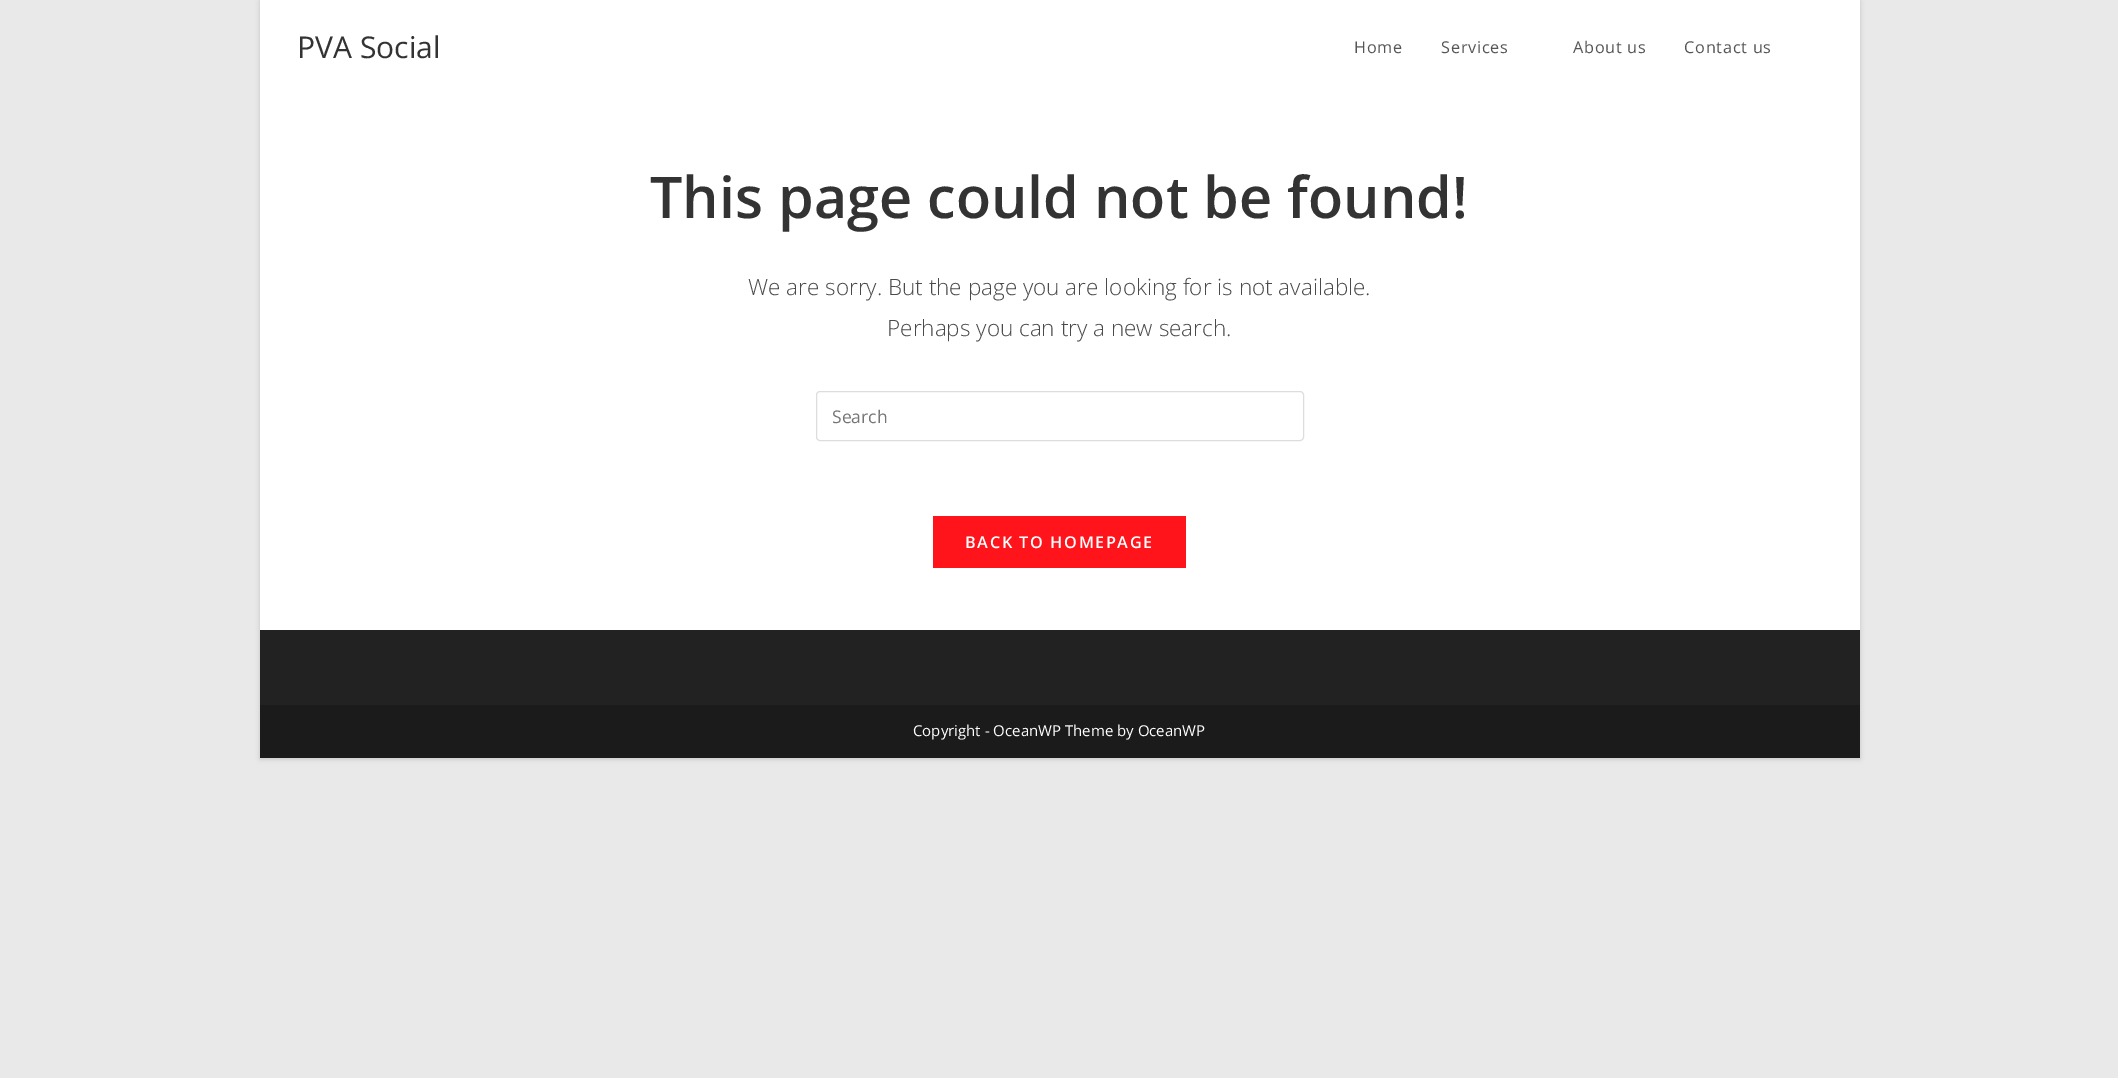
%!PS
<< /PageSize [2118 1078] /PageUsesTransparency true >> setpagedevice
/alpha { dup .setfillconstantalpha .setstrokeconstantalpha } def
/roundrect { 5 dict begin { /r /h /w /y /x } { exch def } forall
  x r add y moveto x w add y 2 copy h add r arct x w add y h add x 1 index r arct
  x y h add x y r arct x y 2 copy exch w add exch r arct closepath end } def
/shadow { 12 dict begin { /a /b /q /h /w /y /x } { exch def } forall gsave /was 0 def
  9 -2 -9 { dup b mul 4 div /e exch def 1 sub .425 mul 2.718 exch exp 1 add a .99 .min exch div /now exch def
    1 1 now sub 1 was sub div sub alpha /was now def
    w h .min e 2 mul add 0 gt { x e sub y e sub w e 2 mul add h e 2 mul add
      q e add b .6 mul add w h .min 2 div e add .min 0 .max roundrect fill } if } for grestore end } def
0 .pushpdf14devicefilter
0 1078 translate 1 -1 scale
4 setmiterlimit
0.914 setgray
0 0 2118 1078 rectfill
0 setgray
260 1 1600 758 0 2.5 0.15 shadow
1 setgray
260 0 1600 630 rectfill
/OpenSans-Regular [30 0 0 -30 0 0] selectfont
0.2 setgray
297 58 moveto (PVA Social) show
/OpenSans-Regular [16.25 0 0 -16.25 0 0] selectfont
0.333 setgray
1354 53 moveto 0.75 0 (Home) ashow
1441 53 moveto 0.75 0 (Services) ashow
1573 53 moveto 0.75 0 (About us) ashow
1684 53 moveto 0.75 0 (Contact us) ashow
/OpenSans-SemiBold [57.5 0 0 -57.5 0 0] selectfont
0.2 setgray
650 218 moveto (This page could not be found!) show
/OpenSans-Light [22.5 0 0 -22.5 0 0] selectfont
0.29 setgray
748 295 moveto (We are sorry. But the page you are looking for is not available.) show
887 336 moveto (Perhaps you can try a new search.) show
0.867 setgray
816.5 391.5 487 49 3.5 roundrect stroke
/OpenSans-Regular [17.5 0 0 -17.5 0 0] selectfont
0.459 setgray
832 423 moveto (Search) show
1 0.078 0.11 setrgbcolor
933 516 253 52 rectfill
/OpenSans-SemiBold [16.25 0 0 -16.25 0 0] selectfont
1 setgray
965 548 moveto 1.6 0 (BACK TO HOMEPAGE) ashow
0.133 setgray
260 630 1600 75 rectfill
0.106 setgray
260 705 1600 53 rectfill
/OpenSans-Regular [15 0 0 -15 0 0] selectfont
1 setgray
913 736 moveto (Copyright - OceanWP Theme by OceanWP) show
.poppdf14devicefilter showpage
